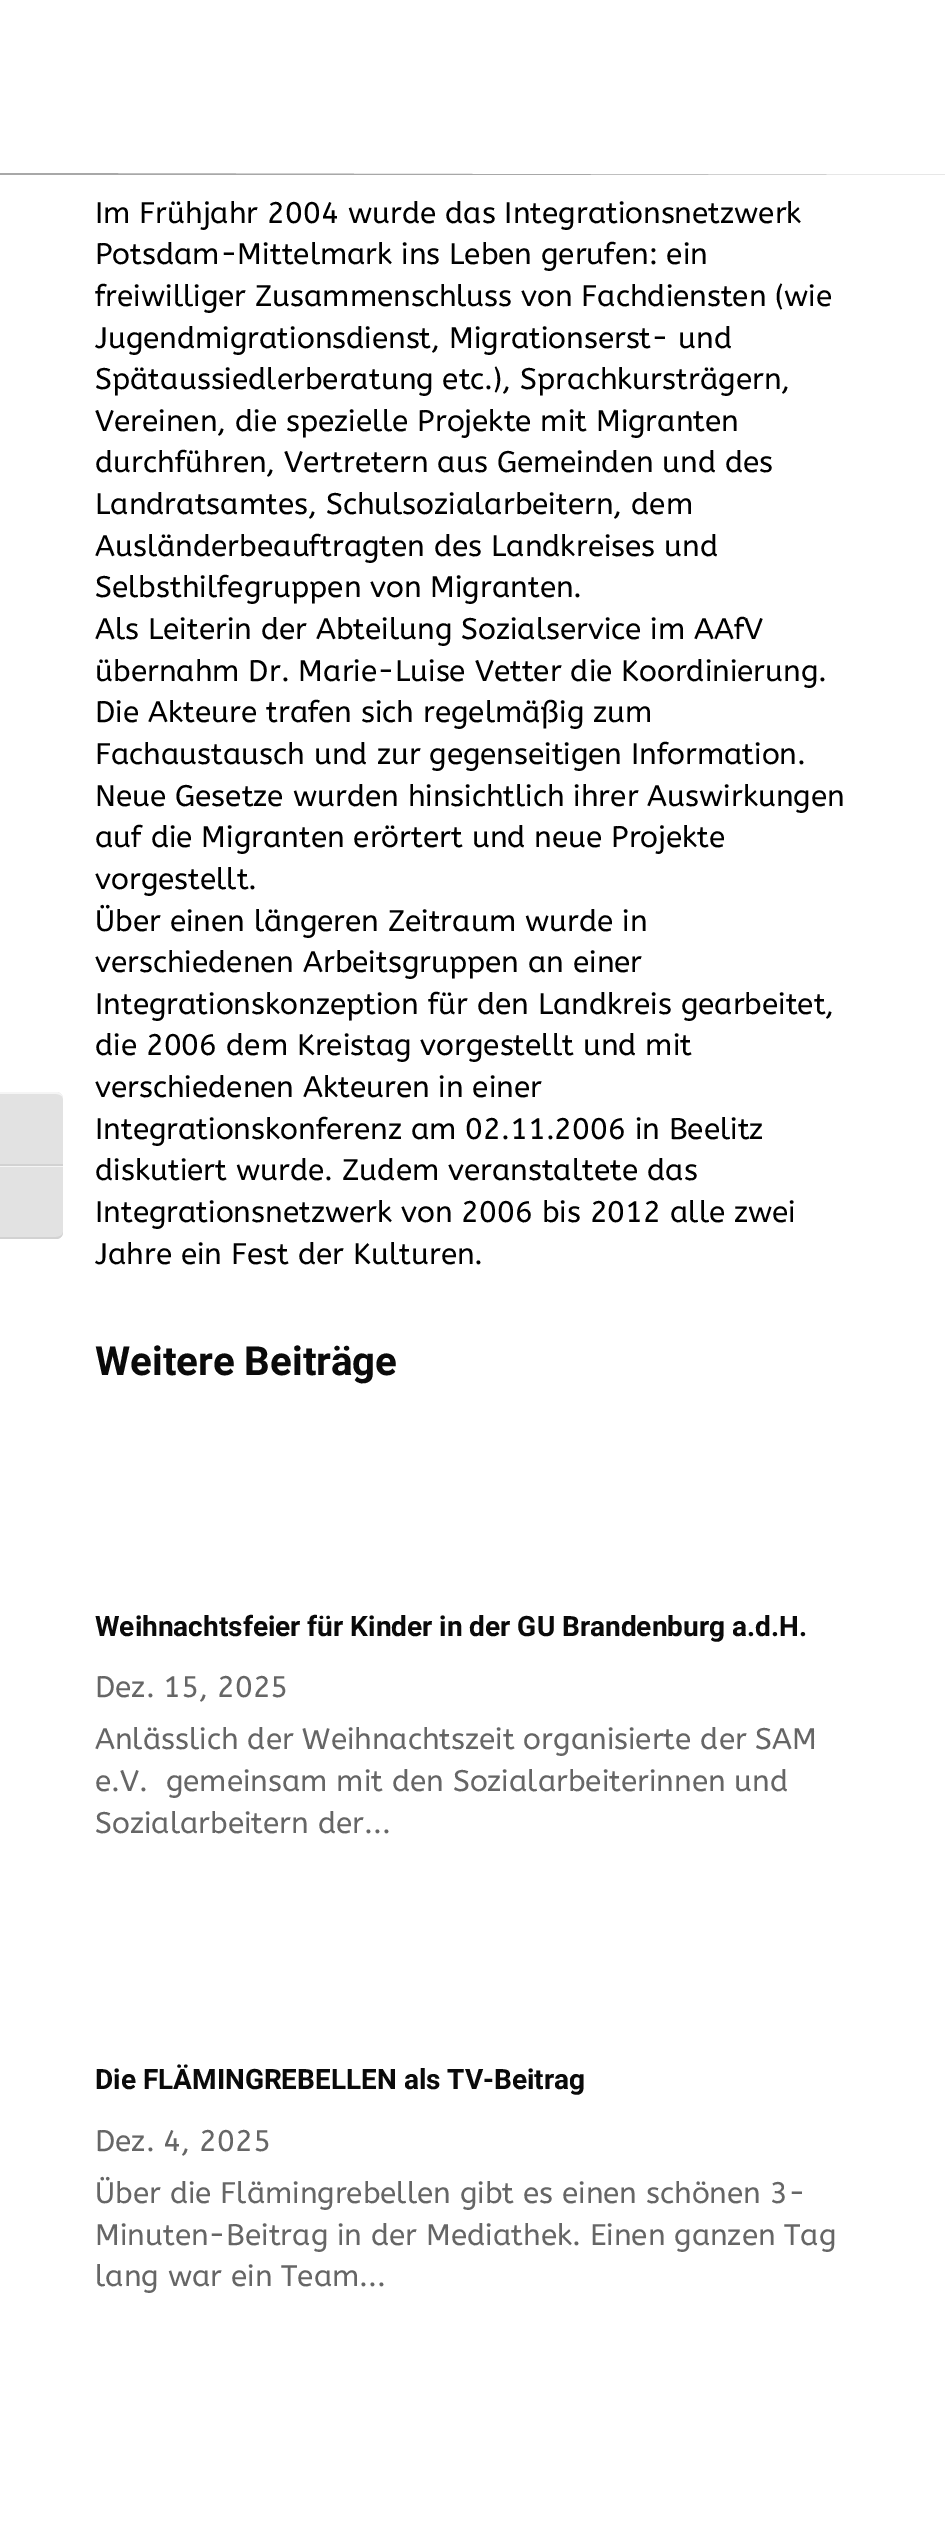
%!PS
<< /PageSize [945 2536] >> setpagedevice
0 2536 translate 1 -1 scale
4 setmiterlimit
1 setgray
0 0 945 2536 rectfill
0.886 setgray
newpath 0 1092 moveto 56 1092 lineto 60 1092 63 1095 63 1099 curveto 63 1166 lineto 0 1166 lineto closepath fill
0.961 setgray
newpath 0 1092 moveto 0 1094 lineto 56 1094 lineto 60 1094 63 1096 63 1099 curveto 63 1095 60 1092 56 1092 curveto closepath fill
0.824 setgray
0 1164 63 2 rectfill
0.886 setgray
newpath 0 1166 moveto 63 1166 lineto 63 1232 lineto 63 1236 60 1239 56 1239 curveto 0 1239 lineto closepath fill
0.961 setgray
0 1166 63 1 rectfill
0.824 setgray
newpath 0 1237 moveto 0 1239 lineto 56 1239 lineto 60 1239 63 1236 63 1232 curveto 63 1235 60 1237 56 1237 curveto closepath fill
0.659 setgray
newpath 0 173 moveto 0 175 lineto 945 175 lineto closepath fill
/ABeeZee-Regular [29.75 0 0 -29.75 0 0] selectfont
0 setgray
95 223 moveto (Im Frühjahr 2004 wurde das Integrationsnetzwerk) show
95 264 moveto (Potsdam-Mittelmark ins Leben gerufen: ein) show
95 306 moveto (freiwilliger Zusammenschluss von Fachdiensten \(wie) show
95 348 moveto (Jugendmigrationsdienst, Migrationserst- und) show
95 389 moveto (Spätaussiedlerberatung etc.\), Sprachkursträgern,) show
95 431 moveto (Vereinen, die spezielle Projekte mit Migranten) show
95 472 moveto (durchführen, Vertretern aus Gemeinden und des) show
95 514 moveto (Landratsamtes, Schulsozialarbeitern, dem) show
95 556 moveto (Ausländerbeauftragten des Landkreises und) show
95 597 moveto (Selbsthilfegruppen von Migranten.) show
95 639 moveto (Als Leiterin der Abteilung Sozialservice im AAfV) show
95 681 moveto (übernahm Dr. Marie-Luise Vetter die Koordinierung.) show
95 722 moveto (Die Akteure trafen sich regelmäßig zum) show
95 764 moveto (Fachaustausch und zur gegenseitigen Information.) show
95 806 moveto (Neue Gesetze wurden hinsichtlich ihrer Auswirkungen) show
95 847 moveto (auf die Migranten erörtert und neue Projekte) show
95 889 moveto (vorgestellt.) show
95 931 moveto (Über einen längeren Zeitraum wurde in) show
95 972 moveto (verschiedenen Arbeitsgruppen an einer) show
95 1014 moveto (Integrationskonzeption für den Landkreis gearbeitet,) show
95 1055 moveto (die 2006 dem Kreistag vorgestellt und mit) show
95 1097 moveto (verschiedenen Akteuren in einer) show
95 1139 moveto (Integrationskonferenz am 02.11.2006 in Beelitz) show
95 1180 moveto (diskutiert wurde. Zudem veranstaltete das) show
95 1222 moveto (Integrationsnetzwerk von 2006 bis 2012 alle zwei) show
95 1264 moveto (Jahre ein Fest der Kulturen.) show
/Roboto-Bold [40.25 0 0 -40.25 0 0] selectfont
0.039 setgray
95 1375 moveto (Weitere Beiträge) show
/Roboto-Bold [28 0 0 -28 0 0] selectfont
95 1636 moveto (Weihnachtsfeier für Kinder in der GU Brandenburg a.d.H.) show
/ABeeZee-Regular [29.75 0 0 -29.75 0 0] selectfont
0.4 setgray
95 1697 moveto (Dez. 15, 2025) show
95 1749 moveto (Anlässlich der Weihnachtszeit organisierte der SAM) show
95 1791 moveto (e.V.  gemeinsam mit den Sozialarbeiterinnen und) show
95 1833 moveto (Sozialarbeitern der...) show
/Roboto-Bold [28 0 0 -28 0 0] selectfont
0.039 setgray
95 2089 moveto (Die FLÄMINGREBELLEN als TV-Beitrag) show
/ABeeZee-Regular [29.75 0 0 -29.75 0 0] selectfont
0.4 setgray
95 2151 moveto (Dez. 4, 2025) show
95 2203 moveto (Über die Flämingrebellen gibt es einen schönen 3-) show
95 2245 moveto (Minuten-Beitrag in der Mediathek. Einen ganzen Tag) show
95 2286 moveto (lang war ein Team...) show
showpage
